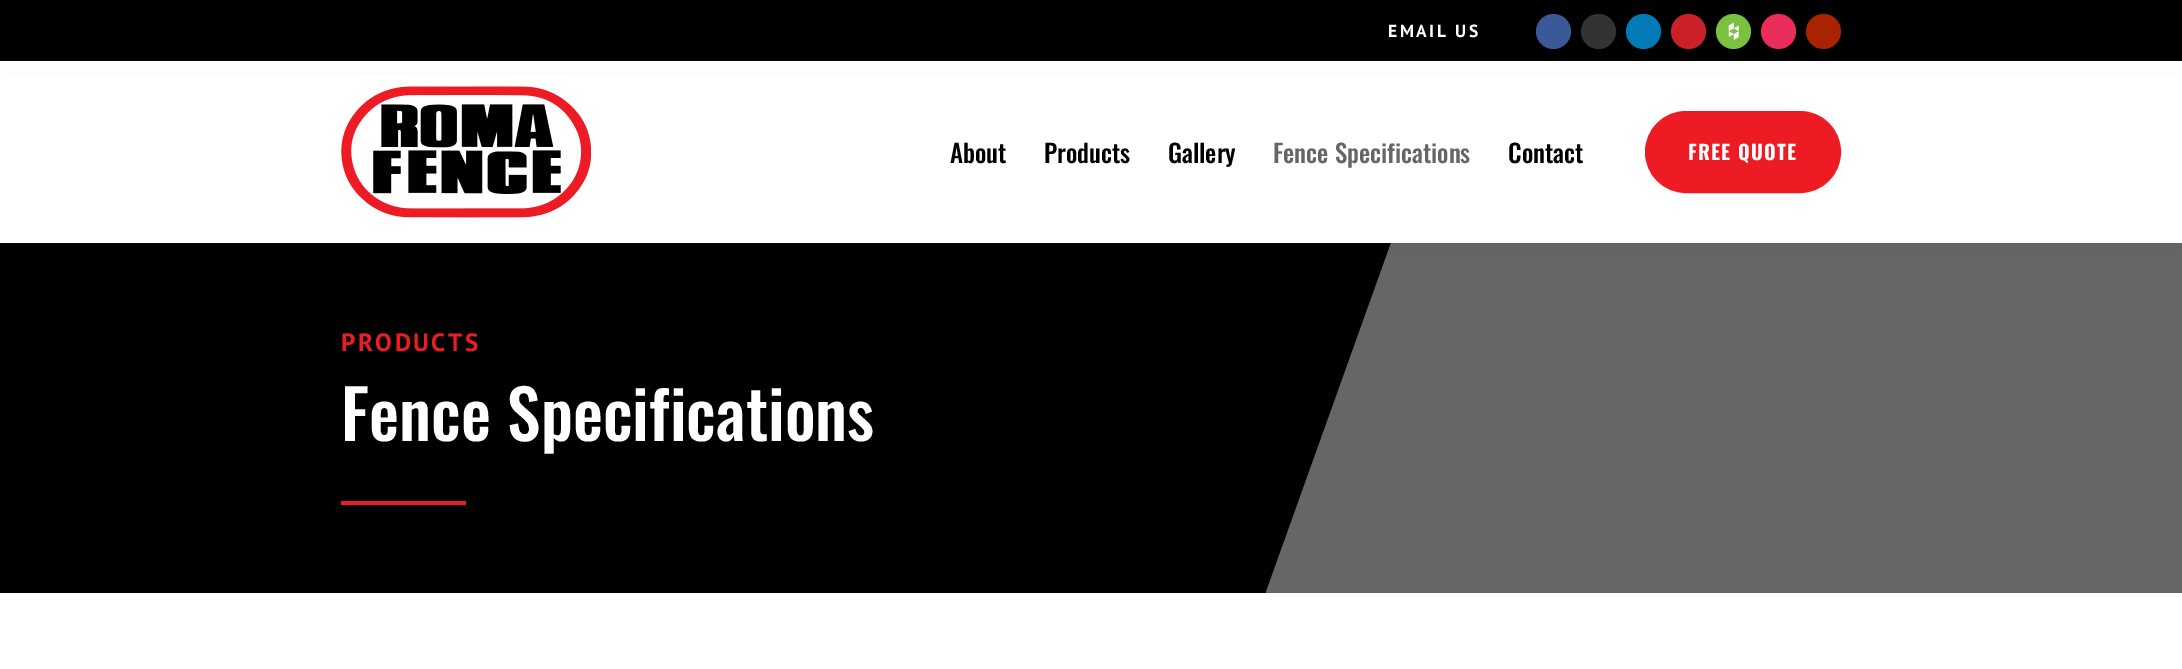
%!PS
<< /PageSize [2182 669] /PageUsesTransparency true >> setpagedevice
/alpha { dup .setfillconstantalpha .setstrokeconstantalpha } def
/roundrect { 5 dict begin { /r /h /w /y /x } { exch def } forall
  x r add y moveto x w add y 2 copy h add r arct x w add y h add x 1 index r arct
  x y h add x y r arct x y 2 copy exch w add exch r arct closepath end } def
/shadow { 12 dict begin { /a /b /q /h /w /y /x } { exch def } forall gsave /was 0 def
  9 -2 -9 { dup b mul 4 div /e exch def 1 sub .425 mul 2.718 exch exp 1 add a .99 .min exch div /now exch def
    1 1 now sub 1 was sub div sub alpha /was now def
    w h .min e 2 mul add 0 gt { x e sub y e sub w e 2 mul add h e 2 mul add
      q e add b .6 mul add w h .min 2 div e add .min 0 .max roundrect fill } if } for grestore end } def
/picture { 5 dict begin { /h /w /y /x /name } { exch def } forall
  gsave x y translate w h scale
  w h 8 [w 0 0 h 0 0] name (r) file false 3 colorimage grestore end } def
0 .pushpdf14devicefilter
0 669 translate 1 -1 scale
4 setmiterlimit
1 setgray
0 0 2182 669 rectfill
0 setgray
0 0 2182 61 rectfill
/PTSans-Bold [17.5 0 0 -17.5 0 0] selectfont
1 setgray
1388 37 moveto 2.5 0 (EMAIL US) ashow
0.231 0.349 0.596 setrgbcolor
newpath 1553.5 31.5 17.5 0 360 arc closepath fill
0.2 setgray
newpath 1598.5 31.5 17.5 0 360 arc closepath fill
0 0.482 0.714 setrgbcolor
newpath 1643.5 31.5 17.5 0 360 arc closepath fill
0.796 0.125 0.153 setrgbcolor
newpath 1688.5 31.5 17.5 0 360 arc closepath fill
0.478 0.757 0.259 setrgbcolor
newpath 1733.5 31.5 17.5 0 360 arc closepath fill
(img1.rgb) 1728 22 11 18 picture
0.918 0.173 0.349 setrgbcolor
newpath 1778.5 31.5 17.5 0 360 arc closepath fill
0.659 0.141 0 setrgbcolor
newpath 1823.5 31.5 17.5 0 360 arc closepath fill
0 setgray
0 243 1391 350 rectfill
0.4 setgray
newpath 1266 592 moveto 1391 243 lineto 2182 243 lineto 2182 593 lineto 1266 593 lineto closepath fill
0 setgray
8 84 2167 166 0 11 0.05 shadow
1 setgray
0 75 2182 168 rectfill
(img2.rgb) 341 86 250 132 picture
/Oswald-Medium [25 0 0 -25 0 0] selectfont
0 setgray
950 163 moveto (About) show
1044 163 moveto (Products) show
1168 163 moveto (Gallery) show
0.4 setgray
1273 163 moveto (Fence Specifications) show
0 setgray
1508 163 moveto (Contact) show
0.929 0.11 0.141 setrgbcolor
1647 113 192 78 39 roundrect gsave fill grestore
4 setlinewidth
stroke
/Oswald-Bold [20 0 0 -20 0 0] selectfont
1 setgray
1688 160 moveto 1.25 0 (FREE QUOTE) ashow
/PTSans-Bold [25 0 0 -25 0 0] selectfont
0.929 0.11 0.141 setrgbcolor
341 351 moveto 2.5 0 (PRODUCTS) ashow
/Oswald-Medium [67.5 0 0 -67.5 0 0] selectfont
1 setgray
341 441 moveto (Fence Specifications) show
0.929 0.11 0.141 setrgbcolor
341 501 125 4 rectfill
.poppdf14devicefilter showpage
